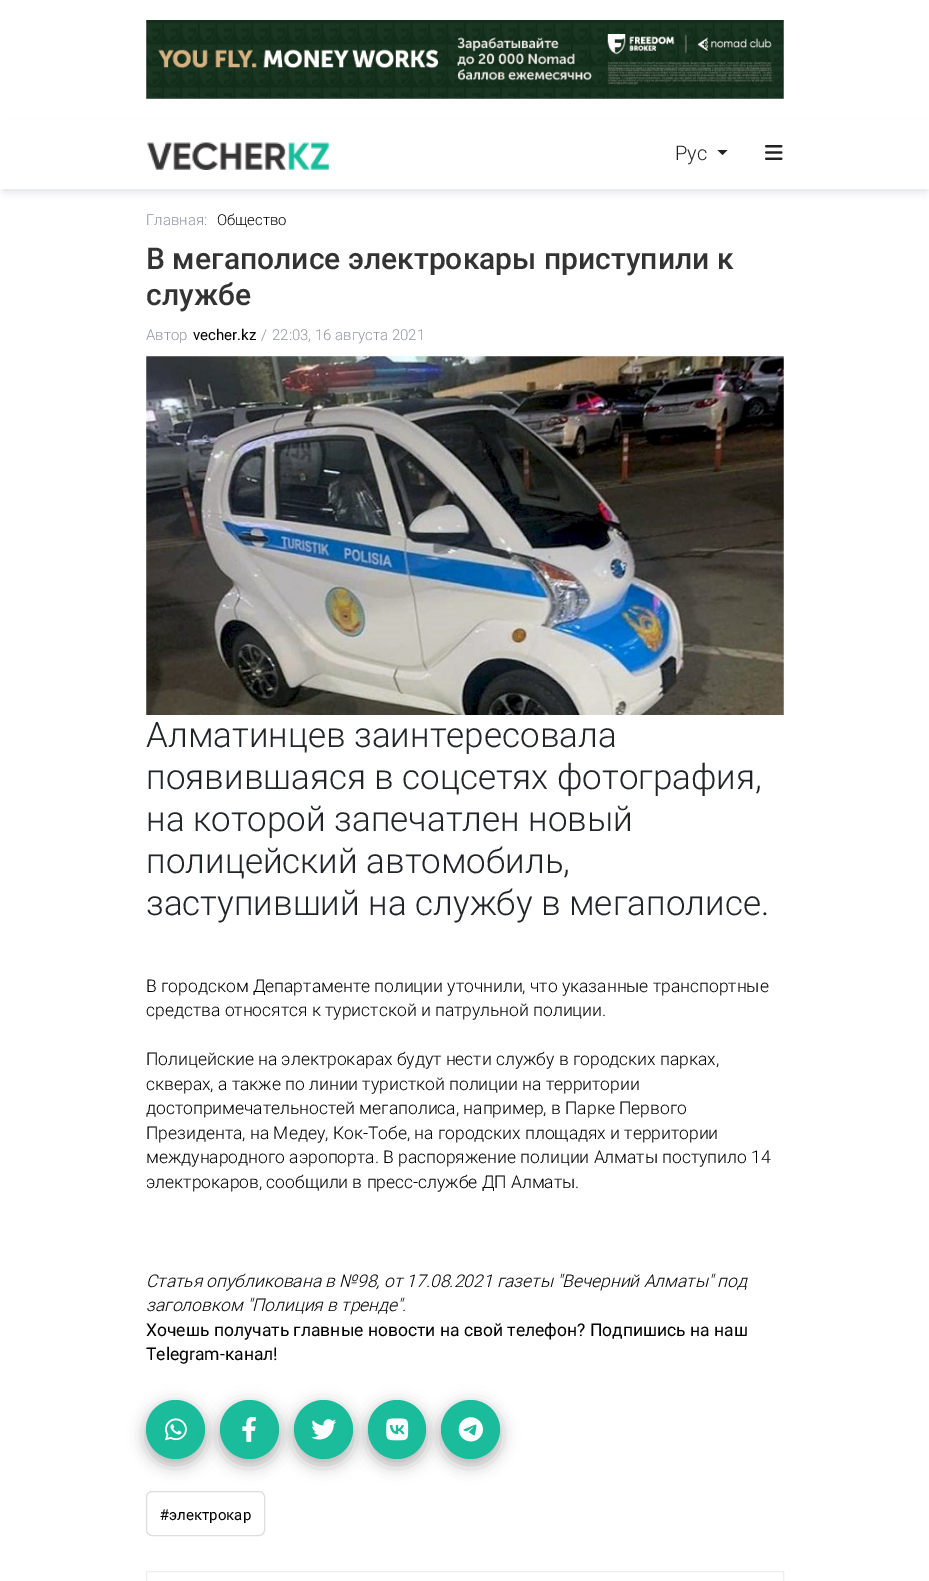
%!PS
<< /PageSize [929 1581] /PageUsesTransparency true >> setpagedevice
/alpha { dup .setfillconstantalpha .setstrokeconstantalpha } def
/roundrect { 5 dict begin { /r /h /w /y /x } { exch def } forall
  x r add y moveto x w add y 2 copy h add r arct x w add y h add x 1 index r arct
  x y h add x y r arct x y 2 copy exch w add exch r arct closepath end } def
/shadow { 12 dict begin { /a /b /q /h /w /y /x } { exch def } forall gsave /was 0 def
  9 -2 -9 { dup b mul 4 div /e exch def 1 sub .425 mul 2.718 exch exp 1 add a .99 .min exch div /now exch def
    1 1 now sub 1 was sub div sub alpha /was now def
    w h .min e 2 mul add 0 gt { x e sub y e sub w e 2 mul add h e 2 mul add
      q e add b .6 mul add w h .min 2 div e add .min 0 .max roundrect fill } if } for grestore end } def
/picture { 5 dict begin { /h /w /y /x /name } { exch def } forall
  gsave x y translate w h scale
  w h 8 [w 0 0 h 0 0] name (r) file false 3 colorimage grestore end } def
0 .pushpdf14devicefilter
0 1581 translate 1 -1 scale
4 setmiterlimit
1 setgray
0 0 929 1581 rectfill
(img1.rgb) 146 20 638 79 picture
gsave
newpath 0 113 moveto 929 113 lineto 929 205 lineto 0 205 lineto closepath 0 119 moveto 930 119 lineto 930 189 lineto 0 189 lineto closepath eoclip newpath
0.133 0.235 0.314 setrgbcolor
4 128 922 62 0 4.5 0.2 shadow
grestore
128 188 675 1 rectfill
(img2.rgb) 147 142 182 28 picture
/Roboto-Light [20 0 0 -20 0 0] selectfont
0.129 setgray
675 160 moveto (Рус) show
newpath 717.5 150 moveto 727.5 150 lineto 722.5 155 lineto closepath fill
(img3.rgb) 765 145 18 15 picture
/Roboto-Light [15 0 0 -15 0 0] selectfont
0.561 0.576 0.639 setrgbcolor
146 225 moveto (Главная:) show
0 setgray
217 225 moveto (Общество) show
/Roboto-Medium [30 0 0 -30 0 0] selectfont
0.2 setgray
146 269 moveto (В мегаполисе электрокары приступили к) show
146 305 moveto (службе) show
/Roboto-Light [15 0 0 -15 0 0] selectfont
0.561 0.576 0.639 setrgbcolor
146 340 moveto (Автор) show
/Roboto-Regular [15 0 0 -15 0 0] selectfont
0 setgray
193 340 moveto (vecher.kz) show
/Roboto-Light [15 0 0 -15 0 0] selectfont
0.561 0.576 0.639 setrgbcolor
261 340 moveto (/) show
272 340 moveto (22:03, 16 августа 2021) show
(img4.rgb) 146 356 638 359 picture
/Roboto-Light [35 0 0 -35 0 0] selectfont
0.129 0.145 0.161 setrgbcolor
146 747 moveto (Алматинцев заинтересовала) show
146 789 moveto (появившаяся в соцсетях фотография,) show
146 831 moveto (на которой запечатлен новый) show
146 873 moveto (полицейский автомобиль,) show
146 915 moveto (заступивший на службу в мегаполисе.) show
/Roboto-Light [17.5 0 0 -17.5 0 0] selectfont
0 setgray
146 992 moveto (В городском Департаменте полиции уточнили, что указанные транспортные) show
146 1016 moveto (средства относятся к туристской и патрульной полиции.) show
146 1065 moveto (Полицейские на электрокарах будут нести службу в городских парках,) show
146 1090 moveto (скверах, а также по линии туристкой полиции на территории) show
146 1114 moveto (достопримечательностей мегаполиса, например, в Парке Первого) show
146 1139 moveto (Президента, на Медеу, Кок-Тобе, на городских площадях и территории) show
146 1163 moveto (международного аэропорта. В распоряжение полиции Алматы поступило 14) show
146 1188 moveto (электрокаров, сообщили в пресс-службе ДП Алматы.) show
/Roboto-LightItalic [17.5 0 0 -17.5 0 0] selectfont
146 1287 moveto (Статья опубликована в №98, от 17.08.2021 газеты "Вечерний Алматы" под) show
146 1311 moveto (заголовком "Полиция в тренде".) show
/Roboto-Regular [17.5 0 0 -17.5 0 0] selectfont
146 1336 moveto (Хочешь получать главные новости на свой телефон? Подпишись на наш) show
146 1360 moveto (Telegram-канал!) show
0.867 setgray
146.5 1491.5 118 44 5.5 roundrect stroke
0 setgray
146 1405 59 59 29.5 9.5 0.15 shadow
146 1406 59 59 29.5 7 0.18 shadow
0.102 0.737 0.612 setrgbcolor
newpath 175.5 1429.5 29.5 0 360 arc closepath fill
(img5.rgb) 165 1418 22 23 picture
0 setgray
220 1405 59 59 29.5 9.5 0.15 shadow
220 1406 59 59 29.5 7 0.18 shadow
0.102 0.737 0.612 setrgbcolor
newpath 249.5 1429.5 29.5 0 360 arc closepath fill
(img6.rgb) 242 1416 14 26 picture
0 setgray
294 1405 59 59 29.5 9.5 0.15 shadow
294 1406 59 59 29.5 7 0.18 shadow
0.102 0.737 0.612 setrgbcolor
newpath 323.5 1429.5 29.5 0 360 arc closepath fill
(img7.rgb) 311 1419 26 21 picture
0 setgray
368 1405 58 59 29 9.5 0.15 shadow
368 1406 58 59 29 7 0.18 shadow
0.102 0.737 0.612 setrgbcolor
368 1400 58 59 29 roundrect fill
(img8.rgb) 386 1418 23 23 picture
0 setgray
441 1405 59 59 29.5 9.5 0.15 shadow
441 1406 59 59 29.5 7 0.18 shadow
0.102 0.737 0.612 setrgbcolor
newpath 470.5 1429.5 29.5 0 360 arc closepath fill
(img9.rgb) 458 1417 25 25 picture
/Roboto-Regular [15 0 0 -15 0 0] selectfont
0 setgray
160 1520 moveto (#электрокар) show
0.933 setgray
146.5 1571.5 637 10 rectstroke
.poppdf14devicefilter showpage
